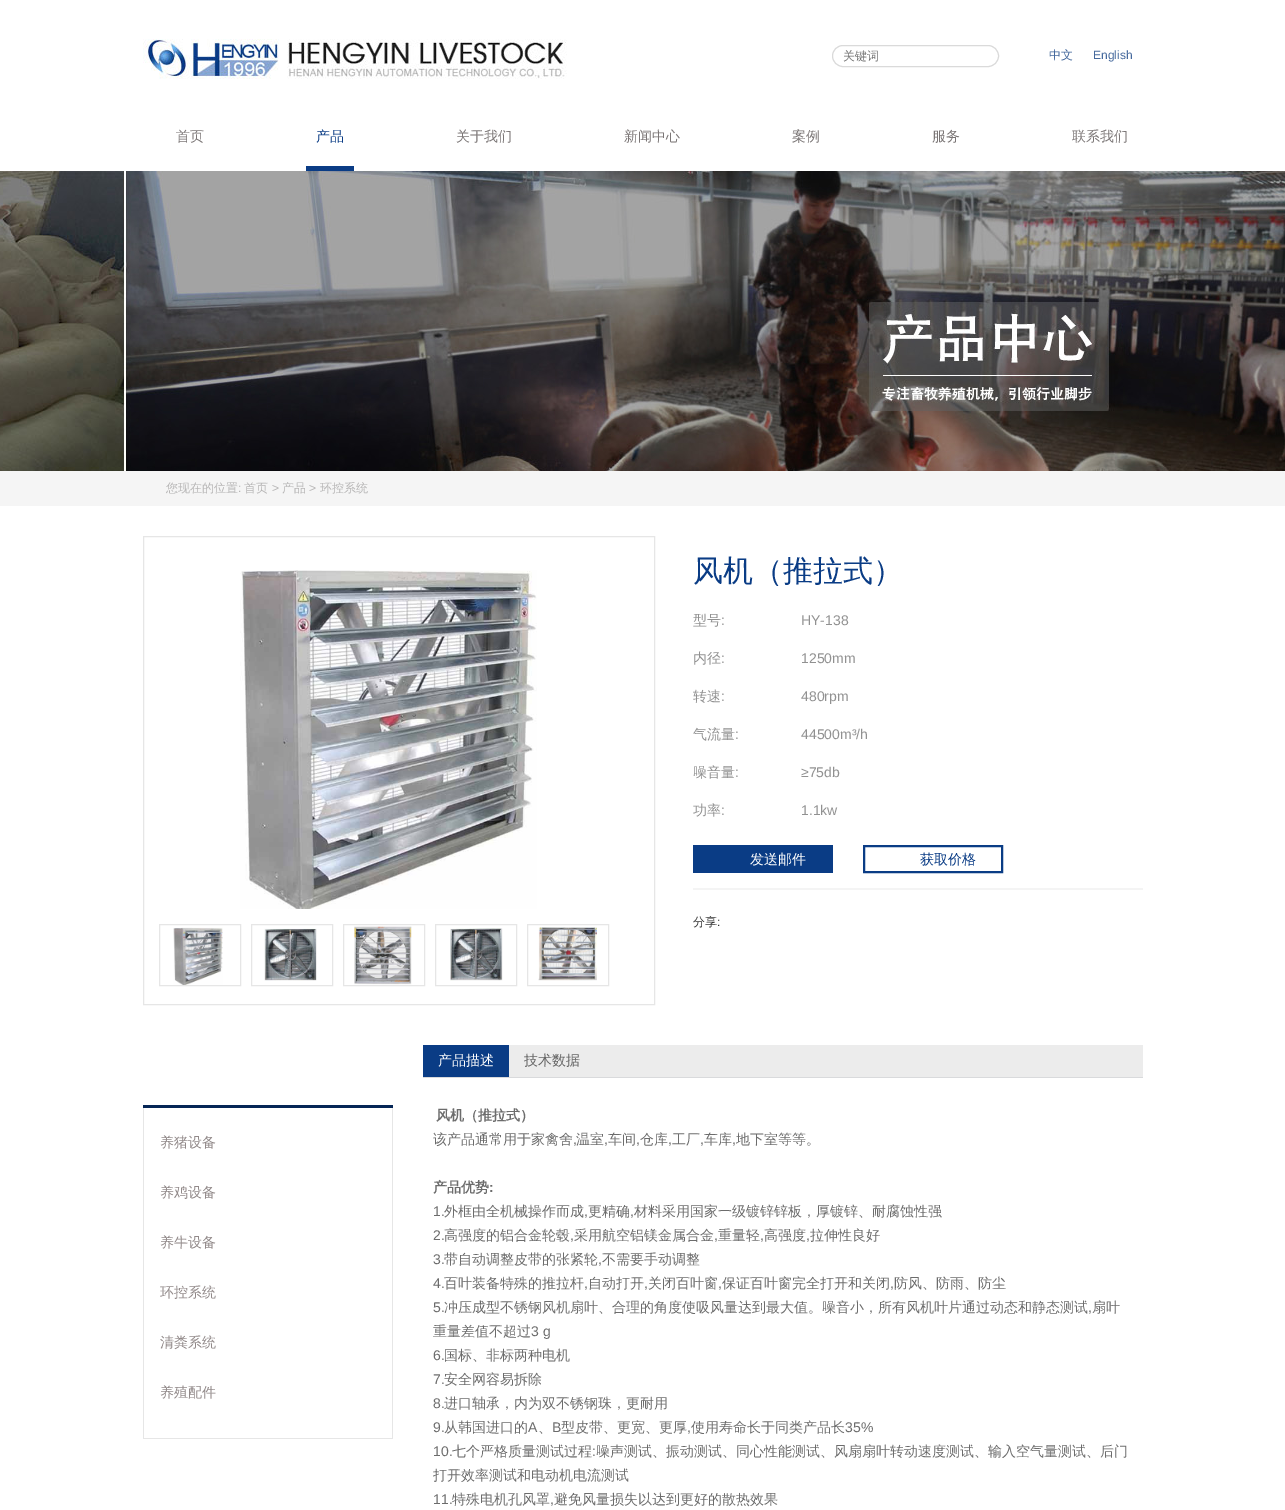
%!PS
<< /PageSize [1285 1510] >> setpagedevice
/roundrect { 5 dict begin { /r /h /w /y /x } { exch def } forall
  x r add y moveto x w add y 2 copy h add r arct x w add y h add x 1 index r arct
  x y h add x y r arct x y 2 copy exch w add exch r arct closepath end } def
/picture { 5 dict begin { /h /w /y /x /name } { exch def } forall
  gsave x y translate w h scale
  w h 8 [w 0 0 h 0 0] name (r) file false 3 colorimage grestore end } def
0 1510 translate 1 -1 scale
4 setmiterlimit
1 setgray
0 0 1285 1510 rectfill
(img1.rgb) 143 39 424 40 picture
0.855 setgray
832.5 45.5 166 21 10.5 roundrect stroke
/WenQuanYiZenHei-Medium [12 0 0 -12 0 0] selectfont
0.459 setgray
843 60 moveto (关键词) show
0.271 0.412 0.616 setrgbcolor
1049 59 moveto (中文) show
/LiberationSans-Regular [12 0 0 -12 0 0] selectfont
1093 59 moveto (English) show
/WenQuanYiZenHei-Medium [14 0 0 -14 0 0] selectfont
0.482 0.463 0.463 setrgbcolor
176 141 moveto (首页) show
0.039 0.235 0.522 setrgbcolor
306 166 48 5 rectfill
316 141 moveto (产品) show
0.482 0.463 0.463 setrgbcolor
456 141 moveto (关于我们) show
624 141 moveto (新闻中心) show
792 141 moveto (案例) show
932 141 moveto (服务) show
1072 141 moveto (联系我们) show
(img2.rgb) 0 171 1285 300 picture
0.961 setgray
0 471 1285 35 rectfill
/WenQuanYiZenHei-Medium [12 0 0 -12 0 0] selectfont
0.718 0.714 0.714 setrgbcolor
166 492 moveto (您现在的位置) show
/LiberationSans-Regular [12 0 0 -12 0 0] selectfont
238 492 moveto (:) show
/WenQuanYiZenHei-Medium [12 0 0 -12 0 0] selectfont
244 492 moveto (首页) show
/LiberationSans-Regular [12 0 0 -12 0 0] selectfont
272 492 moveto (>) show
/WenQuanYiZenHei-Medium [12 0 0 -12 0 0] selectfont
282 492 moveto (产品) show
/LiberationSans-Regular [12 0 0 -12 0 0] selectfont
309 492 moveto (>) show
/WenQuanYiZenHei-Medium [12 0 0 -12 0 0] selectfont
320 492 moveto (环控系统) show
0.902 setgray
143.5 536.5 511 468 rectstroke
(img3.rgb) 240 570 297 339 picture
159.5 924.5 81 61 rectstroke
(img4.rgb) 173 927 50 58 picture
251.5 924.5 81 61 rectstroke
(img5.rgb) 264 928 53 53 picture
343.5 924.5 81 61 rectstroke
(img6.rgb) 354 926 58 59 picture
435.5 924.5 81 61 rectstroke
(img7.rgb) 450 928 53 53 picture
527.5 924.5 81 61 rectstroke
(img8.rgb) 538 927 59 54 picture
/WenQuanYiZenHei-Medium [30 0 0 -30 0 0] selectfont
0.039 0.235 0.522 setrgbcolor
693 581 moveto (风机（推拉式）) show
/WenQuanYiZenHei-Medium [14 0 0 -14 0 0] selectfont
0.569 setgray
693 625 moveto (型号) show
/LiberationSans-Regular [14 0 0 -14 0 0] selectfont
721 625 moveto (:) show
801 625 moveto (HY-138) show
/WenQuanYiZenHei-Medium [14 0 0 -14 0 0] selectfont
693 663 moveto (内径) show
/LiberationSans-Regular [14 0 0 -14 0 0] selectfont
721 663 moveto (:) show
801 663 moveto (1250mm) show
gsave
693 678 450 38 rectclip
/WenQuanYiZenHei-Medium [14 0 0 -14 0 0] selectfont
693 701 moveto (转速) show
grestore
721 701 moveto (:) show
801 701 moveto (480rpm) show
/WenQuanYiZenHei-Medium [14 0 0 -14 0 0] selectfont
693 739 moveto (气流量) show
/LiberationSans-Regular [14 0 0 -14 0 0] selectfont
735 739 moveto (:) show
801 739 moveto (44500m³/h) show
/WenQuanYiZenHei-Medium [14 0 0 -14 0 0] selectfont
693 777 moveto (噪音量) show
/LiberationSans-Regular [14 0 0 -14 0 0] selectfont
735 777 moveto (:) show
801 777 moveto (≥75db) show
gsave
693 792 450 38 rectclip
/WenQuanYiZenHei-Medium [14 0 0 -14 0 0] selectfont
693 815 moveto (功率) show
grestore
721 815 moveto (:) show
801 815 moveto (1.1kw) show
0.039 0.235 0.522 setrgbcolor
693 845 140 28 rectfill
/WenQuanYiZenHei-Medium [14 0 0 -14 0 0] selectfont
1 setgray
750 864 moveto (发送邮件) show
0.039 0.235 0.522 setrgbcolor
2 setlinewidth
864 846 138 26 rectstroke
920 864 moveto (获取价格) show
0.957 setgray
693 888 450 2 rectfill
/WenQuanYiZenHei-Medium [12 0 0 -12 0 0] selectfont
0.2 setgray
693 926 moveto (分享) show
/LiberationSans-Regular [12 0 0 -12 0 0] selectfont
717 926 moveto (:) show
0.02 0.149 0.337 setrgbcolor
143 1105 250 3 rectfill
0.902 setgray
392 1108 1 331 rectfill
143 1438 250 1 rectfill
143 1108 1 331 rectfill
/WenQuanYiZenHei-Medium [14 0 0 -14 0 0] selectfont
0.569 0.537 0.537 setrgbcolor
160 1147 moveto (养猪设备) show
160 1197 moveto (养鸡设备) show
160 1247 moveto (养牛设备) show
160 1297 moveto (环控系统) show
160 1347 moveto (清粪系统) show
160 1397 moveto (养殖配件) show
0.925 setgray
509 1045 634 32 rectfill
0.851 0.855 0.863 setrgbcolor
423 1077 720 1 rectfill
0.039 0.235 0.522 setrgbcolor
423 1045 86 32 rectfill
1 setgray
438 1065 moveto (产品描述) show
0.4 setgray
524 1065 moveto (技术数据) show
/WenQuanYiZenHei-Bold [14 0 0 -14 0 0] selectfont
0.424 setgray
436 1120 moveto (风机（推拉式）) show
/WenQuanYiZenHei-Medium [14 0 0 -14 0 0] selectfont
433 1144 moveto (该产品通常用于家禽舍) show
/LiberationSans-Regular [14 0 0 -14 0 0] selectfont
573 1144 moveto (,) show
/WenQuanYiZenHei-Medium [14 0 0 -14 0 0] selectfont
576 1144 moveto (温室) show
/LiberationSans-Regular [14 0 0 -14 0 0] selectfont
604 1144 moveto (,) show
/WenQuanYiZenHei-Medium [14 0 0 -14 0 0] selectfont
608 1144 moveto (车间) show
/LiberationSans-Regular [14 0 0 -14 0 0] selectfont
636 1144 moveto (,) show
/WenQuanYiZenHei-Medium [14 0 0 -14 0 0] selectfont
640 1144 moveto (仓库) show
/LiberationSans-Regular [14 0 0 -14 0 0] selectfont
668 1144 moveto (,) show
/WenQuanYiZenHei-Medium [14 0 0 -14 0 0] selectfont
672 1144 moveto (工厂) show
/LiberationSans-Regular [14 0 0 -14 0 0] selectfont
700 1144 moveto (,) show
/WenQuanYiZenHei-Medium [14 0 0 -14 0 0] selectfont
704 1144 moveto (车库) show
/LiberationSans-Regular [14 0 0 -14 0 0] selectfont
732 1144 moveto (,) show
/WenQuanYiZenHei-Medium [14 0 0 -14 0 0] selectfont
736 1144 moveto (地下室等等。) show
/WenQuanYiZenHei-Bold [14 0 0 -14 0 0] selectfont
433 1192 moveto (产品优势) show
/LiberationSans-Bold [14 0 0 -14 0 0] selectfont
489 1192 moveto (:) show
/LiberationSans-Regular [14 0 0 -14 0 0] selectfont
433 1216 moveto (1.) show
/WenQuanYiZenHei-Medium [14 0 0 -14 0 0] selectfont
444 1216 moveto (外框由全机械操作而成) show
/LiberationSans-Regular [14 0 0 -14 0 0] selectfont
584 1216 moveto (,) show
/WenQuanYiZenHei-Medium [14 0 0 -14 0 0] selectfont
588 1216 moveto (更精确) show
/LiberationSans-Regular [14 0 0 -14 0 0] selectfont
630 1216 moveto (,) show
/WenQuanYiZenHei-Medium [14 0 0 -14 0 0] selectfont
634 1216 moveto (材料采用国家一级镀锌锌板，厚镀锌、耐腐蚀性强) show
/LiberationSans-Regular [14 0 0 -14 0 0] selectfont
433 1240 moveto (2.) show
/WenQuanYiZenHei-Medium [14 0 0 -14 0 0] selectfont
444 1240 moveto (高强度的铝合金轮毂) show
/LiberationSans-Regular [14 0 0 -14 0 0] selectfont
570 1240 moveto (,) show
/WenQuanYiZenHei-Medium [14 0 0 -14 0 0] selectfont
574 1240 moveto (采用航空铝镁金属合金) show
/LiberationSans-Regular [14 0 0 -14 0 0] selectfont
714 1240 moveto (,) show
/WenQuanYiZenHei-Medium [14 0 0 -14 0 0] selectfont
718 1240 moveto (重量轻) show
/LiberationSans-Regular [14 0 0 -14 0 0] selectfont
760 1240 moveto (,) show
/WenQuanYiZenHei-Medium [14 0 0 -14 0 0] selectfont
764 1240 moveto (高强度) show
/LiberationSans-Regular [14 0 0 -14 0 0] selectfont
806 1240 moveto (,) show
/WenQuanYiZenHei-Medium [14 0 0 -14 0 0] selectfont
810 1240 moveto (拉伸性良好) show
/LiberationSans-Regular [14 0 0 -14 0 0] selectfont
433 1264 moveto (3.) show
/WenQuanYiZenHei-Medium [14 0 0 -14 0 0] selectfont
444 1264 moveto (带自动调整皮带的张紧轮) show
/LiberationSans-Regular [14 0 0 -14 0 0] selectfont
598 1264 moveto (,) show
/WenQuanYiZenHei-Medium [14 0 0 -14 0 0] selectfont
602 1264 moveto (不需要手动调整) show
/LiberationSans-Regular [14 0 0 -14 0 0] selectfont
433 1288 moveto (4.) show
/WenQuanYiZenHei-Medium [14 0 0 -14 0 0] selectfont
444 1288 moveto (百叶装备特殊的推拉杆) show
/LiberationSans-Regular [14 0 0 -14 0 0] selectfont
584 1288 moveto (,) show
/WenQuanYiZenHei-Medium [14 0 0 -14 0 0] selectfont
588 1288 moveto (自动打开) show
/LiberationSans-Regular [14 0 0 -14 0 0] selectfont
644 1288 moveto (,) show
/WenQuanYiZenHei-Medium [14 0 0 -14 0 0] selectfont
648 1288 moveto (关闭百叶窗) show
/LiberationSans-Regular [14 0 0 -14 0 0] selectfont
718 1288 moveto (,) show
/WenQuanYiZenHei-Medium [14 0 0 -14 0 0] selectfont
722 1288 moveto (保证百叶窗完全打开和关闭) show
/LiberationSans-Regular [14 0 0 -14 0 0] selectfont
890 1288 moveto (,) show
/WenQuanYiZenHei-Medium [14 0 0 -14 0 0] selectfont
894 1288 moveto (防风、防雨、防尘) show
/LiberationSans-Regular [14 0 0 -14 0 0] selectfont
433 1312 moveto (5.) show
/WenQuanYiZenHei-Medium [14 0 0 -14 0 0] selectfont
444 1312 moveto (冲压成型不锈钢风机扇叶、合理的角度使吸风量达到最大值。噪音小，所有风机叶片通过动态和静态测试) show
/LiberationSans-Regular [14 0 0 -14 0 0] selectfont
1088 1312 moveto (,) show
/WenQuanYiZenHei-Medium [14 0 0 -14 0 0] selectfont
1092 1312 moveto (扇叶) show
433 1336 moveto (重量差值不超过) show
/LiberationSans-Regular [14 0 0 -14 0 0] selectfont
531 1336 moveto (3 g) show
433 1360 moveto (6.) show
/WenQuanYiZenHei-Medium [14 0 0 -14 0 0] selectfont
444 1360 moveto (国标、非标两种电机) show
/LiberationSans-Regular [14 0 0 -14 0 0] selectfont
433 1384 moveto (7.) show
/WenQuanYiZenHei-Medium [14 0 0 -14 0 0] selectfont
444 1384 moveto (安全网容易拆除) show
/LiberationSans-Regular [14 0 0 -14 0 0] selectfont
433 1408 moveto (8.) show
/WenQuanYiZenHei-Medium [14 0 0 -14 0 0] selectfont
444 1408 moveto (进口轴承，内为双不锈钢珠，更耐用) show
/LiberationSans-Regular [14 0 0 -14 0 0] selectfont
433 1432 moveto (9.) show
/WenQuanYiZenHei-Medium [14 0 0 -14 0 0] selectfont
444 1432 moveto (从韩国进口的) show
/LiberationSans-Regular [14 0 0 -14 0 0] selectfont
528 1432 moveto (A) show
/WenQuanYiZenHei-Medium [14 0 0 -14 0 0] selectfont
538 1432 moveto (、) show
/LiberationSans-Regular [14 0 0 -14 0 0] selectfont
552 1432 moveto (B) show
/WenQuanYiZenHei-Medium [14 0 0 -14 0 0] selectfont
561 1432 moveto (型皮带、更宽、更厚) show
/LiberationSans-Regular [14 0 0 -14 0 0] selectfont
687 1432 moveto (,) show
/WenQuanYiZenHei-Medium [14 0 0 -14 0 0] selectfont
691 1432 moveto (使用寿命长于同类产品长) show
/LiberationSans-Regular [14 0 0 -14 0 0] selectfont
845 1432 moveto (35%) show
433 1456 moveto (10.) show
/WenQuanYiZenHei-Medium [14 0 0 -14 0 0] selectfont
452 1456 moveto (七个严格质量测试过程) show
/LiberationSans-Regular [14 0 0 -14 0 0] selectfont
592 1456 moveto (:) show
/WenQuanYiZenHei-Medium [14 0 0 -14 0 0] selectfont
596 1456 moveto (噪声测试、振动测试、同心性能测试、风扇扇叶转动速度测试、输入空气量测试、后门) show
433 1480 moveto (打开效率测试和电动机电流测试) show
/LiberationSans-Regular [14 0 0 -14 0 0] selectfont
433 1504 moveto (11.) show
/WenQuanYiZenHei-Medium [14 0 0 -14 0 0] selectfont
452 1504 moveto (特殊电机孔风罩) show
/LiberationSans-Regular [14 0 0 -14 0 0] selectfont
550 1504 moveto (,) show
/WenQuanYiZenHei-Medium [14 0 0 -14 0 0] selectfont
554 1504 moveto (避免风量损失以达到更好的散热效果) show
showpage
